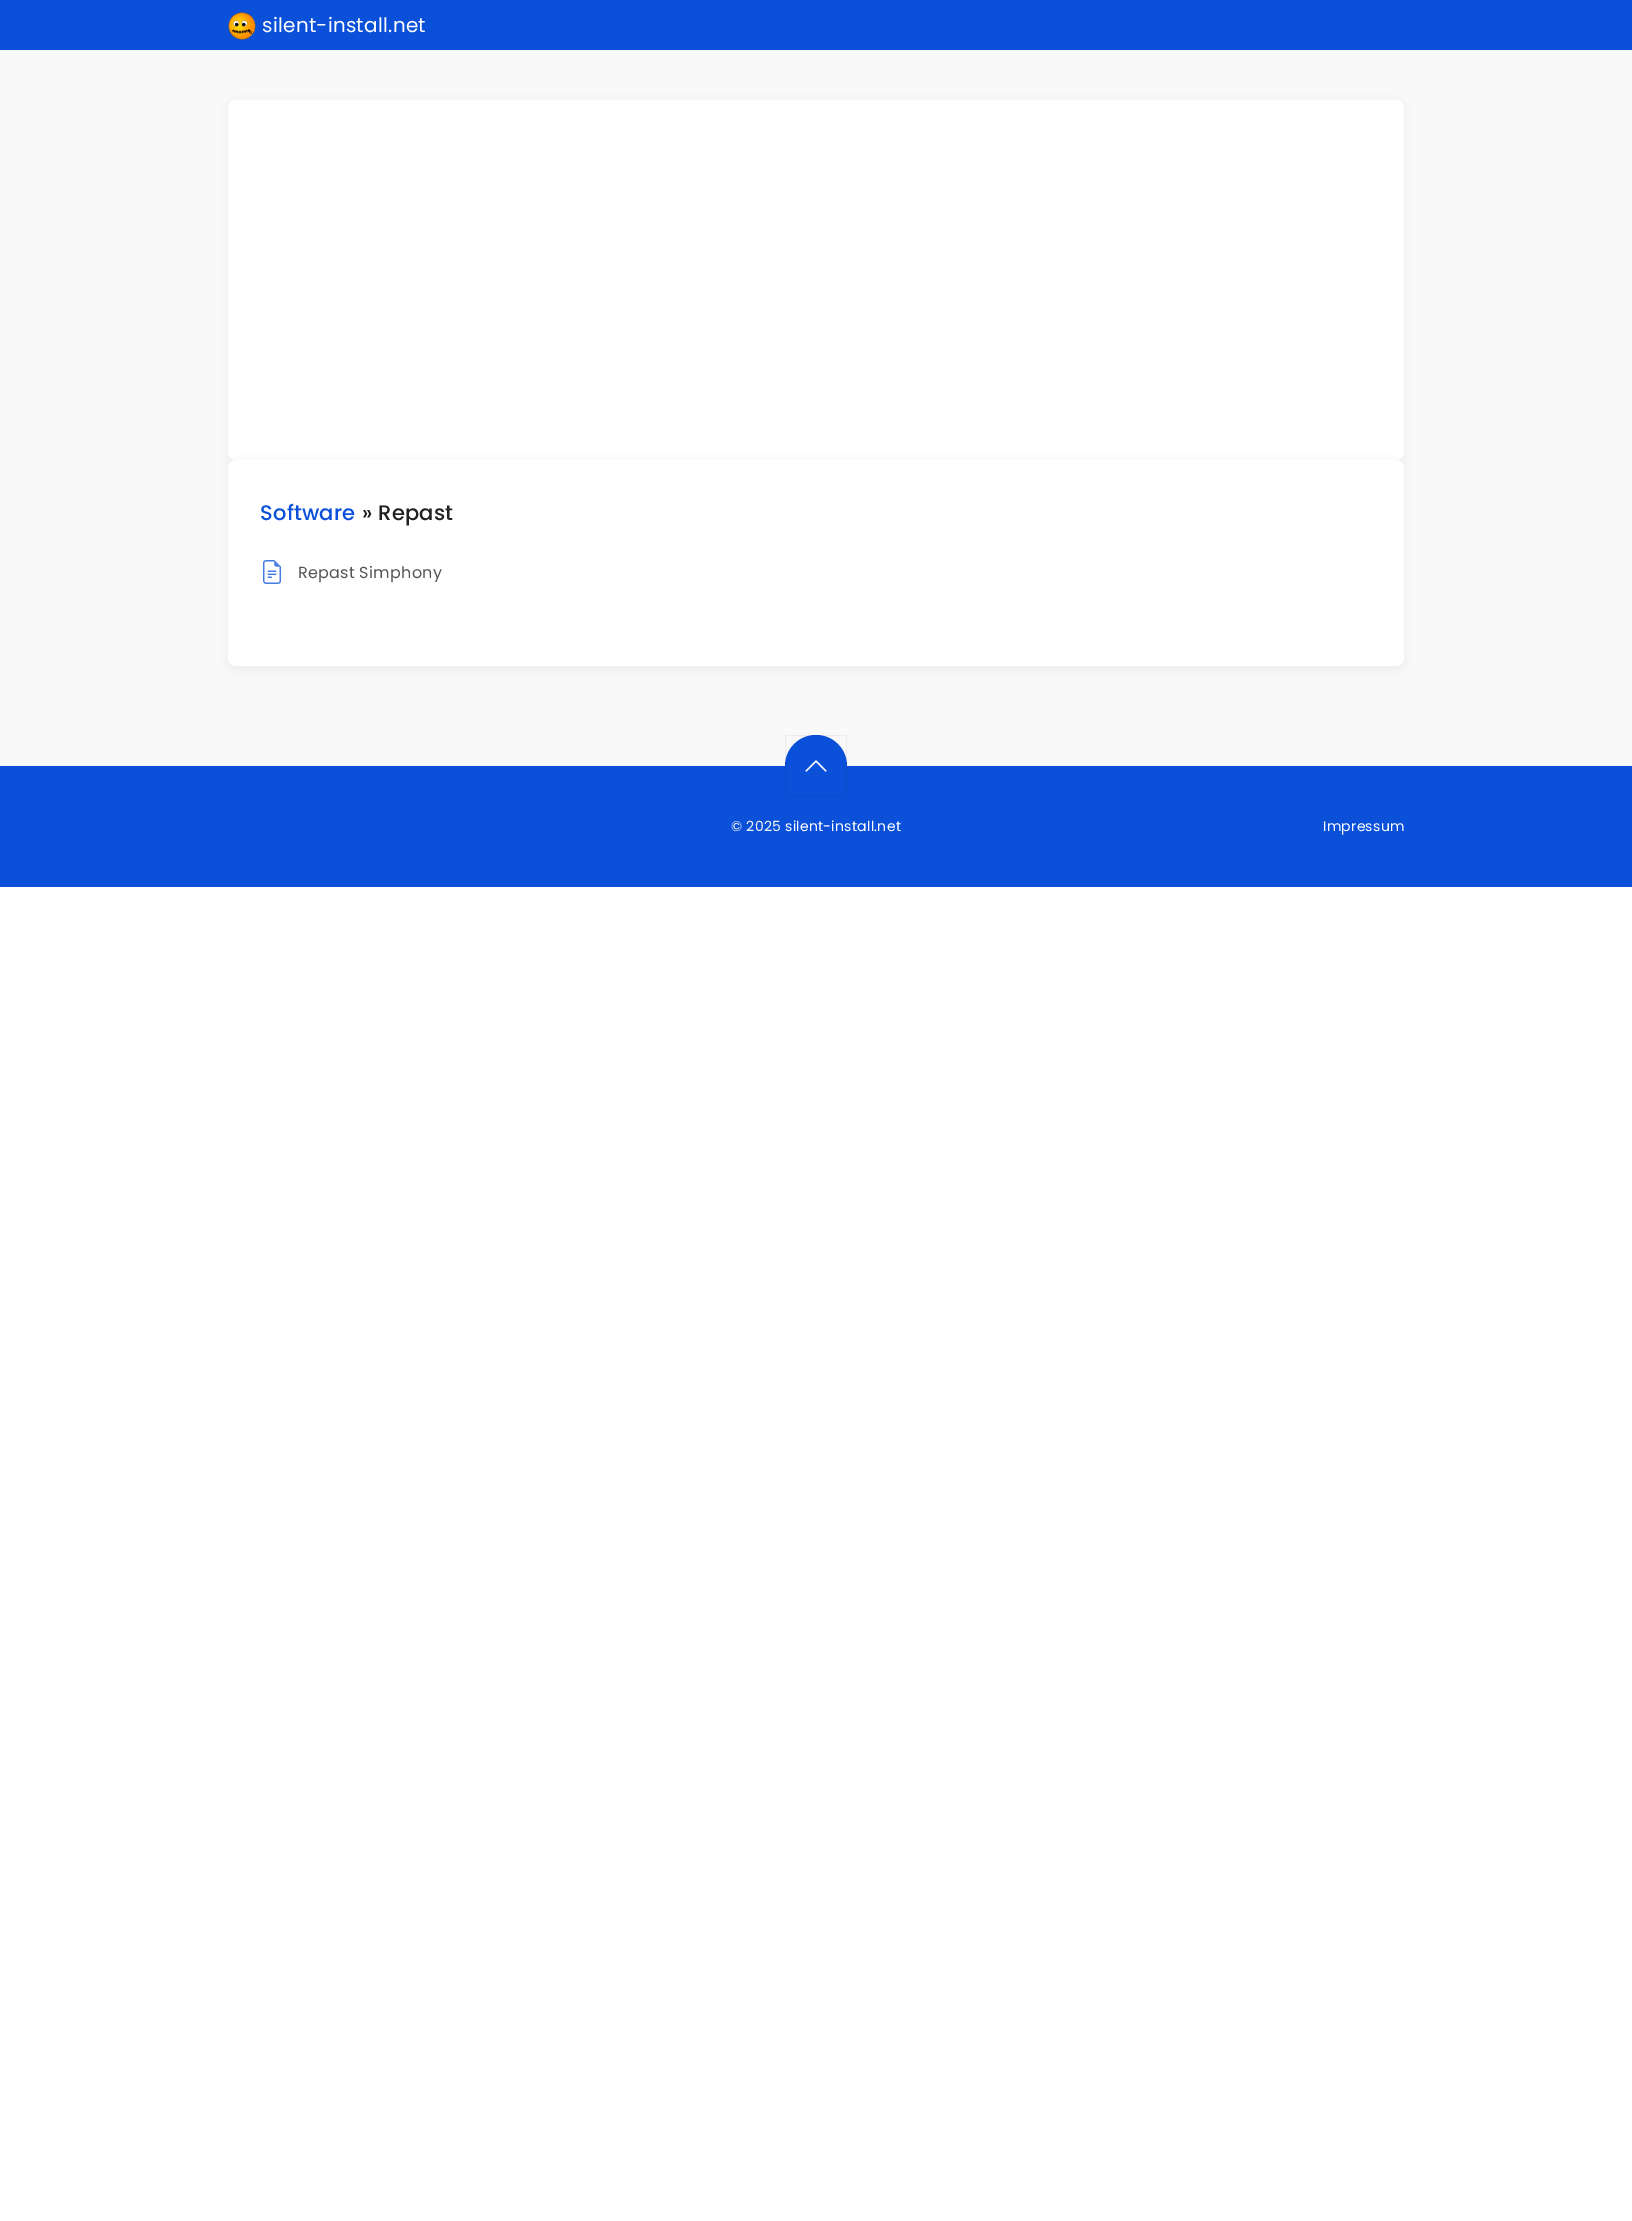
%!PS
<< /PageSize [1632 2221] /PageUsesTransparency true >> setpagedevice
/alpha { dup .setfillconstantalpha .setstrokeconstantalpha } def
/roundrect { 5 dict begin { /r /h /w /y /x } { exch def } forall
  x r add y moveto x w add y 2 copy h add r arct x w add y h add x 1 index r arct
  x y h add x y r arct x y 2 copy exch w add exch r arct closepath end } def
/shadow { 12 dict begin { /a /b /q /h /w /y /x } { exch def } forall gsave /was 0 def
  9 -2 -9 { dup b mul 4 div /e exch def 1 sub .425 mul 2.718 exch exp 1 add a .99 .min exch div /now exch def
    1 1 now sub 1 was sub div sub alpha /was now def
    w h .min e 2 mul add 0 gt { x e sub y e sub w e 2 mul add h e 2 mul add
      q e add b .6 mul add w h .min 2 div e add .min 0 .max roundrect fill } if } for grestore end } def
/picture { 5 dict begin { /h /w /y /x /name } { exch def } forall
  gsave x y translate w h scale
  w h 8 [w 0 0 h 0 0] name (r) file false 3 colorimage grestore end } def
0 .pushpdf14devicefilter
0 2221 translate 1 -1 scale
4 setmiterlimit
1 setgray
0 0 1632 2221 rectfill
0.976 0.976 0.98 setrgbcolor
0 50 1632 716 rectfill
0.043 0.314 0.847 setrgbcolor
0 0 1632 50 rectfill
(img1.rgb) 228 12 28 28 picture
/Poppins-Regular [20 0 0 -20 0 0] selectfont
1 setgray
262 32 moveto 0.25 0 (silent-install.net) ashow
0 setgray
228 103 1176 360 8 6 0.05 shadow
1 setgray
228 100 1176 360 8 roundrect fill
0 setgray
228 463 1176 206 8 6 0.05 shadow
1 setgray
228 460 1176 206 8 roundrect fill
/Poppins-Medium [21 0 0 -21 0 0] selectfont
0.043 0.314 0.847 setrgbcolor
260 520 moveto 0.25 0 (Software) ashow
0.129 setgray
362 520 moveto 0.25 0 (» Repast) ashow
(img2.rgb) 262 560 20 24 picture
/Poppins-Regular [16 0 0 -16 0 0] selectfont
0.333 setgray
298 578 moveto 0.25 0 (Repast Simphony) ashow
0.043 0.314 0.847 setrgbcolor
0 766 1632 121 rectfill
newpath 816 766 31 0 360 arc closepath fill
0.05 alpha
0 setgray
785.5 735.5 61 61 rectstroke
1 alpha
(img3.rgb) 805 760 22 12 picture
/Poppins-Regular [14 0 0 -14 0 0] selectfont
0.945 0.949 0.953 setrgbcolor
731 831 moveto 0.25 0 (© 2025) ashow
1 setgray
785 831 moveto 0.25 0 (silent-install.net) ashow
1323 831 moveto 0.25 0 (Impressum) ashow
.poppdf14devicefilter showpage
